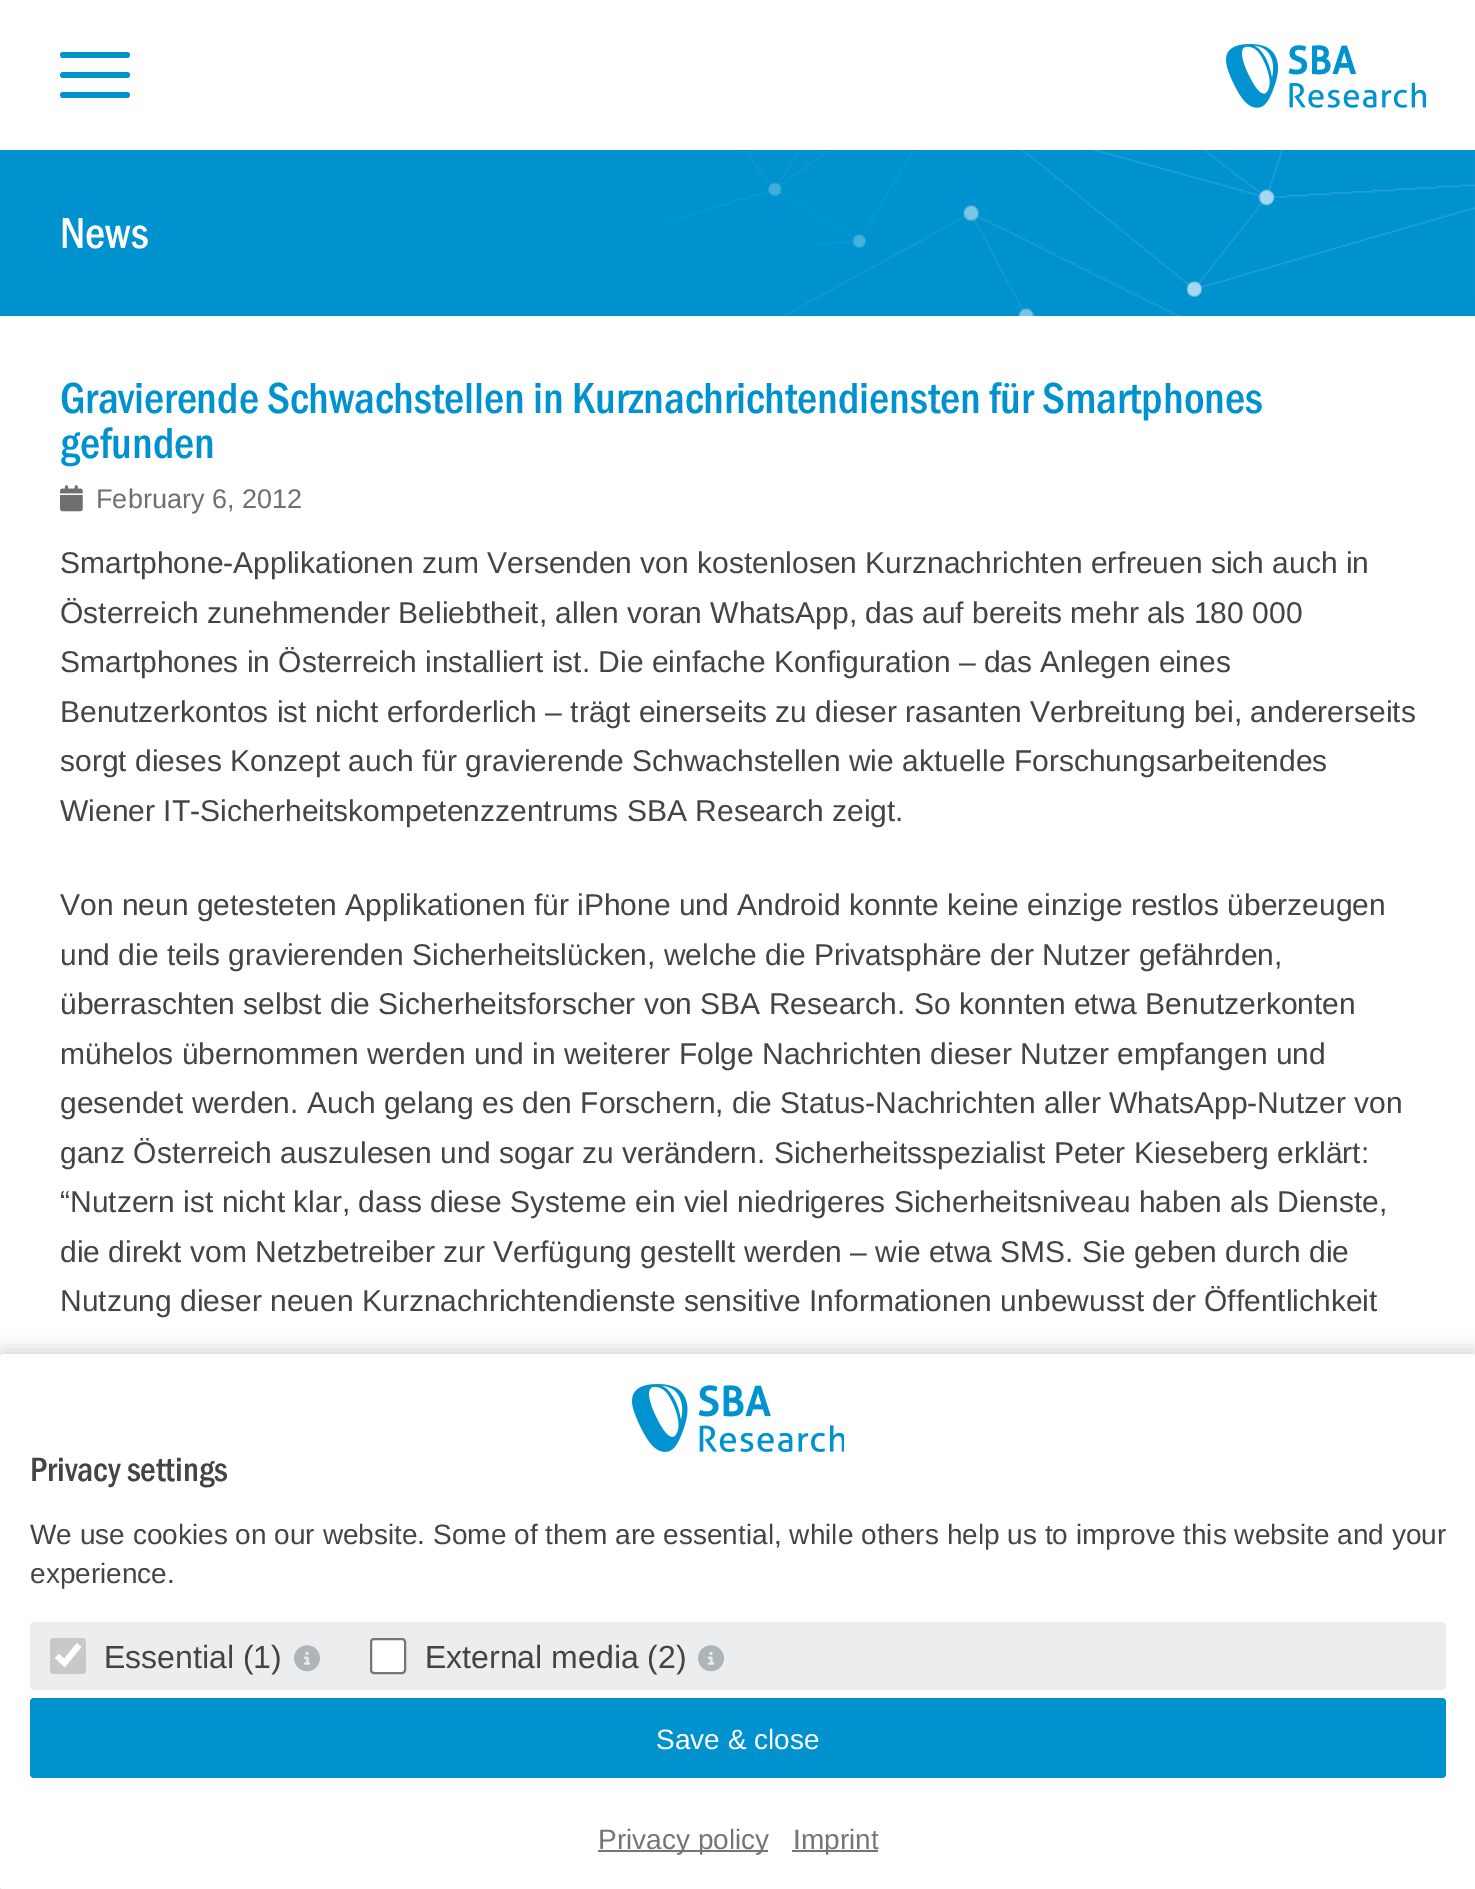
%!PS
<< /PageSize [1475 1889] /PageUsesTransparency true >> setpagedevice
/alpha { dup .setfillconstantalpha .setstrokeconstantalpha } def
/roundrect { 5 dict begin { /r /h /w /y /x } { exch def } forall
  x r add y moveto x w add y 2 copy h add r arct x w add y h add x 1 index r arct
  x y h add x y r arct x y 2 copy exch w add exch r arct closepath end } def
/shadow { 12 dict begin { /a /b /q /h /w /y /x } { exch def } forall gsave /was 0 def
  9 -2 -9 { dup b mul 4 div /e exch def 1 sub .425 mul 2.718 exch exp 1 add a .99 .min exch div /now exch def
    1 1 now sub 1 was sub div sub alpha /was now def
    w h .min e 2 mul add 0 gt { x e sub y e sub w e 2 mul add h e 2 mul add
      q e add b .6 mul add w h .min 2 div e add .min 0 .max roundrect fill } if } for grestore end } def
/picture { 5 dict begin { /h /w /y /x /name } { exch def } forall
  gsave x y translate w h scale
  w h 8 [w 0 0 h 0 0] name (r) file false 3 colorimage grestore end } def
0 .pushpdf14devicefilter
0 1889 translate 1 -1 scale
4 setmiterlimit
1 setgray
0 0 1475 1889 rectfill
0 0.573 0.812 setrgbcolor
60 72 70 6 3 roundrect fill
60 52 70 6 3 roundrect fill
60 92 70 6 3 roundrect fill
(img1.rgb) 1226 44 200 64 picture
0 150 1475 166 rectfill
(img2.rgb) 650 150 825 166 picture
/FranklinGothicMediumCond-Medium [45 0 0 -45 0 0] selectfont
1 setgray
60 248 moveto (News) show
0 0.573 0.812 setrgbcolor
60 413 moveto (Gravierende Schwachstellen in Kurznachrichtendiensten für Smartphones) show
60 458 moveto (gefunden) show
(img3.rgb) 60 485 23 27 picture
/LiberationSans-Regular [27 0 0 -27 0 0] selectfont
0.435 setgray
96 508 moveto (February 6, 2012) show
/LiberationSans-Regular [30 0 0 -30 0 0] selectfont
0.267 setgray
60 573 moveto (Smartphone-Applikationen zum Versenden von kostenlosen Kurznachrichten erfreuen sich auch in) show
60 623 moveto (Österreich zunehmender Beliebtheit, allen voran WhatsApp, das auf bereits mehr als 180 000) show
60 672 moveto (Smartphones in Österreich installiert ist. Die einfache Konfiguration – das Anlegen eines) show
60 722 moveto (Benutzerkontos ist nicht erforderlich – trägt einerseits zu dieser rasanten Verbreitung bei, andererseits) show
60 771 moveto (sorgt dieses Konzept auch für gravierende Schwachstellen wie aktuelle Forschungsarbeitendes) show
60 821 moveto (Wiener IT-Sicherheitskompetenzzentrums SBA Research zeigt.) show
60 915 moveto (Von neun getesteten Applikationen für iPhone und Android konnte keine einzige restlos überzeugen) show
60 965 moveto (und die teils gravierenden Sicherheitslücken, welche die Privatsphäre der Nutzer gefährden,) show
60 1014 moveto (überraschten selbst die Sicherheitsforscher von SBA Research. So konnten etwa Benutzerkonten) show
60 1064 moveto (mühelos übernommen werden und in weiterer Folge Nachrichten dieser Nutzer empfangen und) show
60 1113 moveto (gesendet werden. Auch gelang es den Forschern, die Status-Nachrichten aller WhatsApp-Nutzer von) show
60 1163 moveto (ganz Österreich auszulesen und sogar zu verändern. Sicherheitsspezialist Peter Kieseberg erklärt:) show
60 1212 moveto (“Nutzern ist nicht klar, dass diese Systeme ein viel niedrigeres Sicherheitsniveau haben als Dienste,) show
60 1262 moveto (die direkt vom Netzbetreiber zur Verfügung gestellt werden – wie etwa SMS. Sie geben durch die) show
60 1311 moveto (Nutzung dieser neuen Kurznachrichtendienste sensitive Informationen unbewusst der Öffentlichkeit) show
0 setgray
0 1346 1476 536 0 8 0.1 shadow
0 1362 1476 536 4 8 0.2 shadow
1 setgray
0 1354 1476 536 4 roundrect fill
(img4.rgb) 632 1384 212 68 picture
/FranklinGothicMediumCond-Medium [35 0 0 -35 0 0] selectfont
0.267 setgray
30 1481 moveto (Privacy settings) show
/LiberationSans-Regular [28 0 0 -28 0 0] selectfont
30 1544 moveto (We use cookies on our website. Some of them are essential, while others help us to improve this website and your) show
30 1583 moveto (experience.) show
0.922 0.929 0.933 setrgbcolor
30 1622 1416 68 4 roundrect fill
0.784 0.788 0.792 setrgbcolor
50 1638 36 36 4 roundrect fill
1 setgray
5.8 setlinewidth
newpath 57 1656 moveto 64.5 1663 lineto 79 1645 lineto stroke
/LiberationSans-Regular [32 0 0 -32 0 0] selectfont
0.267 setgray
104 1668 moveto (Essential \(1\)) show
(img5.rgb) 294 1645 26 27 picture
1 setgray
371 1639 34 34 3 roundrect gsave fill grestore
0.463 setgray
2 setlinewidth
stroke
0.267 setgray
425 1668 moveto (External media \(2\)) show
(img5.rgb) 698 1645 26 27 picture
0 0.573 0.812 setrgbcolor
30 1698 1416 80 4 roundrect fill
/LiberationSans-Regular [28 0 0 -28 0 0] selectfont
1 setgray
656 1749 moveto (Save & close) show
0.459 setgray
598 1850 170 2 rectfill
598 1849 moveto (Privacy policy) show
792 1850 86 2 rectfill
793 1849 moveto (Imprint) show
.poppdf14devicefilter showpage
